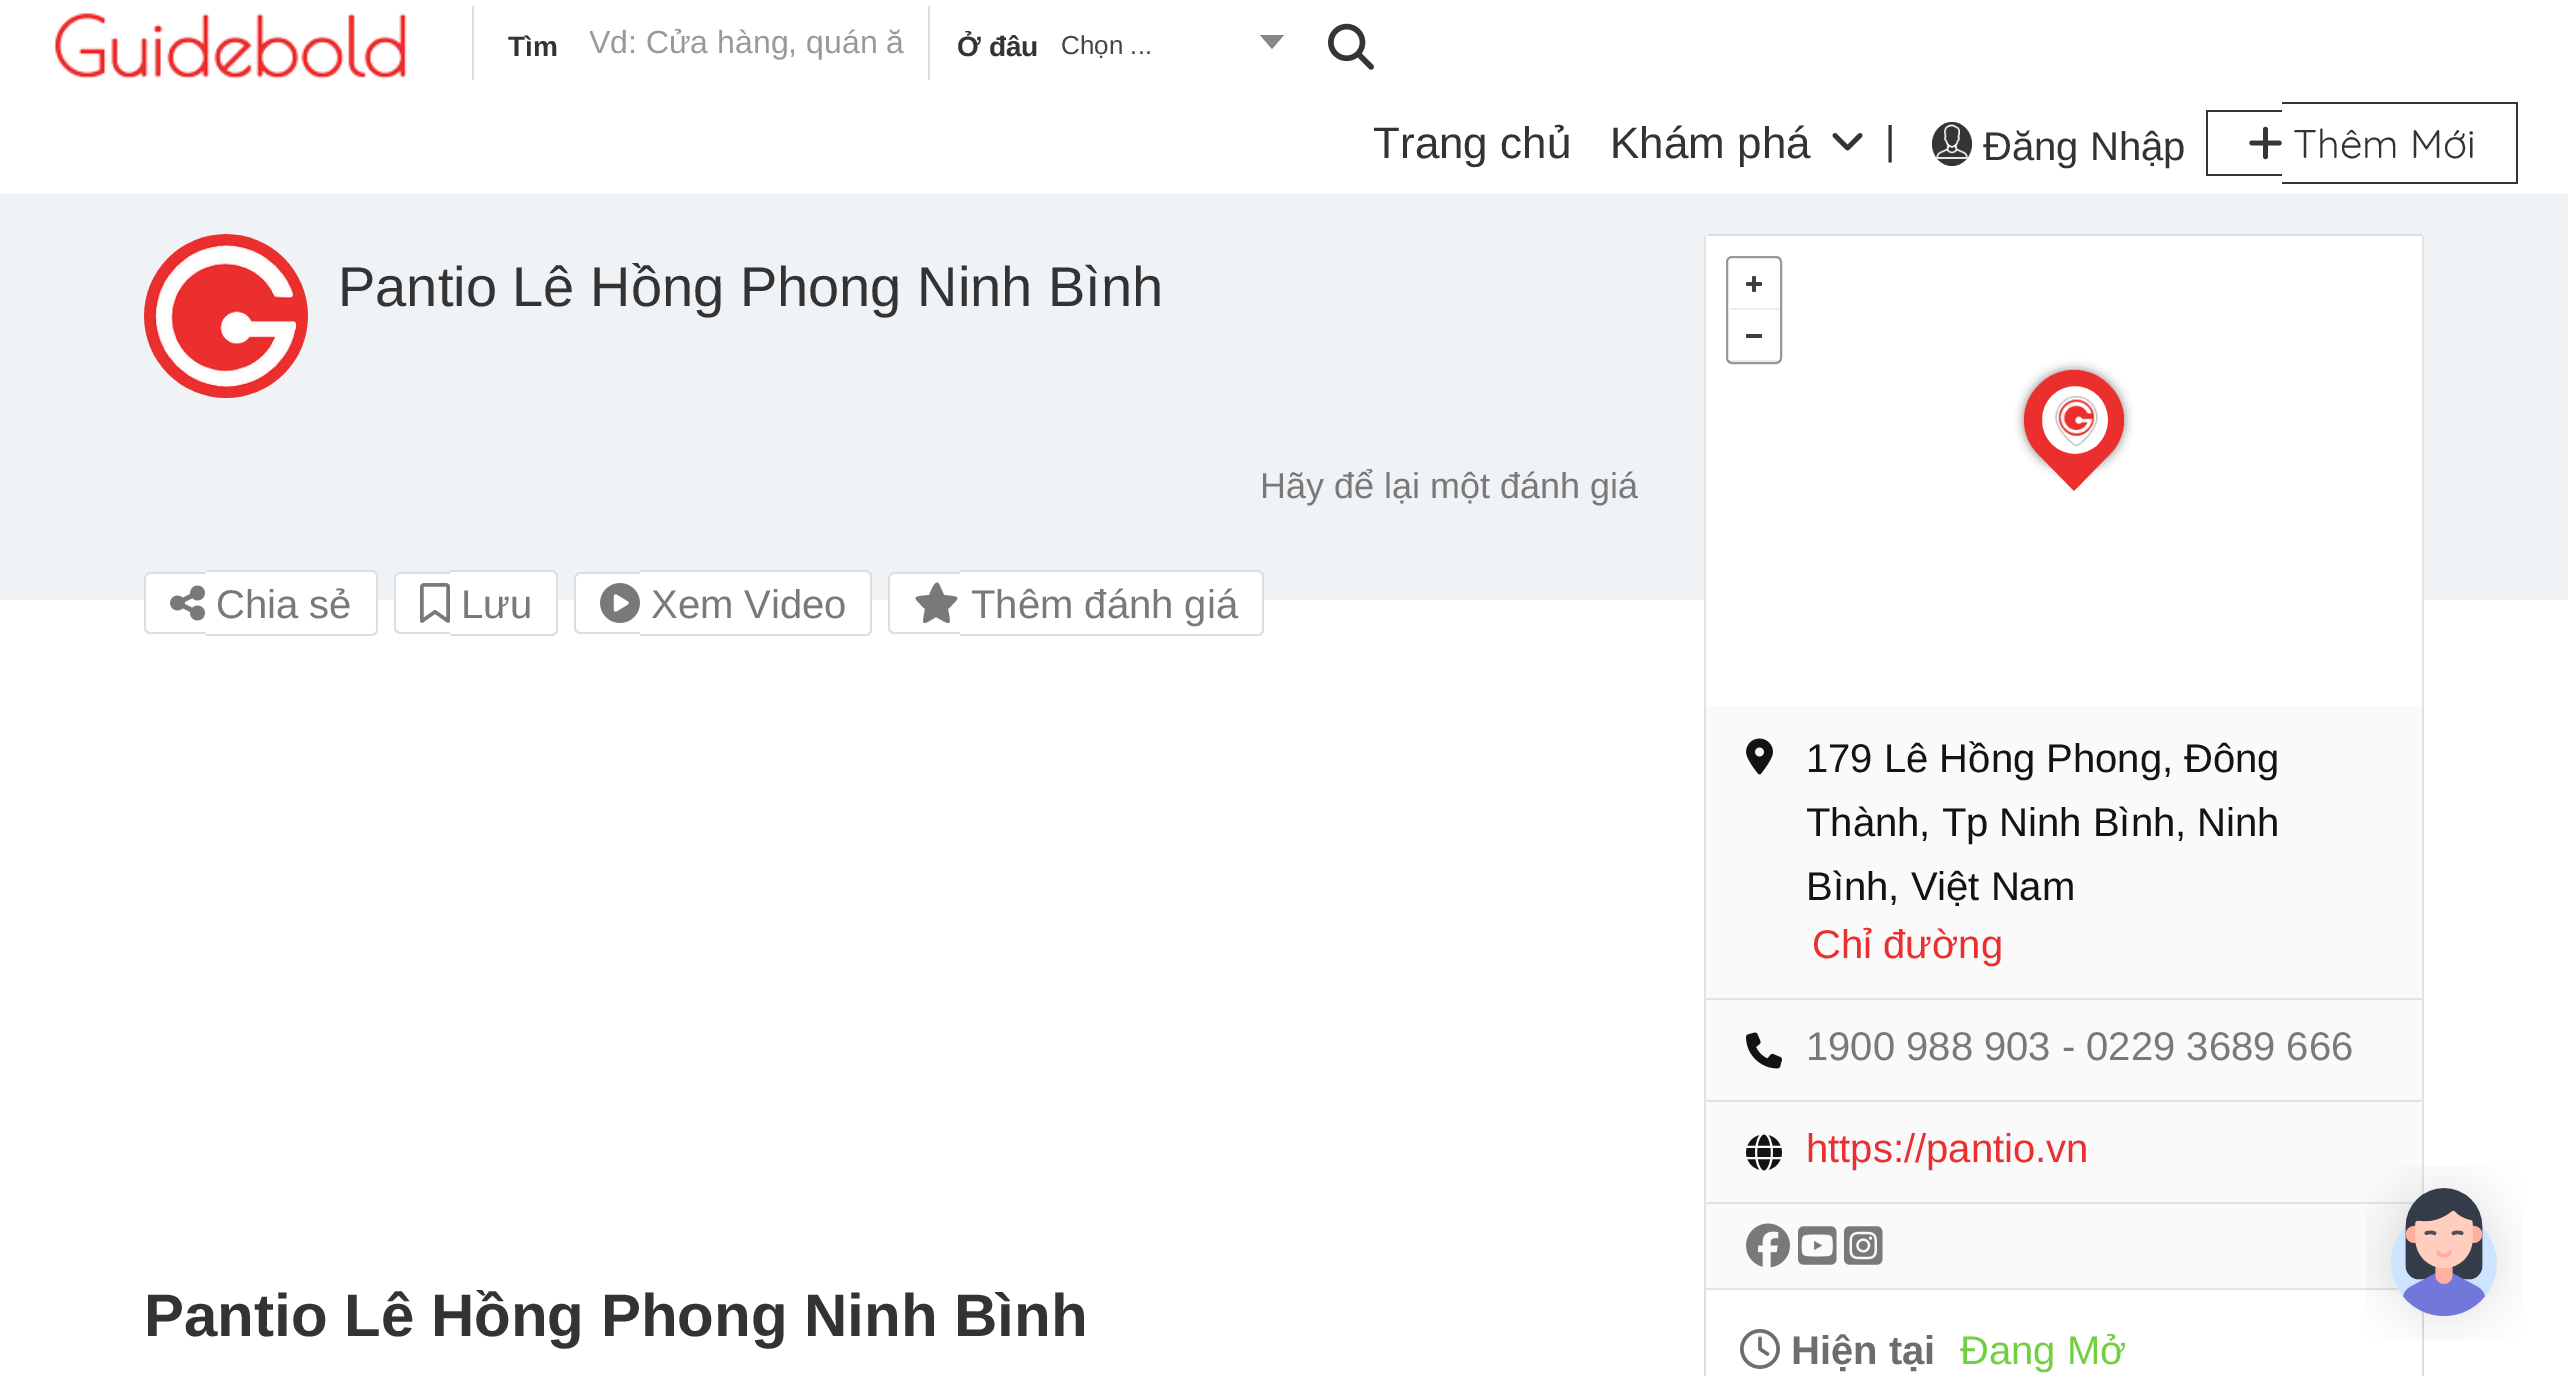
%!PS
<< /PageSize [2568 1376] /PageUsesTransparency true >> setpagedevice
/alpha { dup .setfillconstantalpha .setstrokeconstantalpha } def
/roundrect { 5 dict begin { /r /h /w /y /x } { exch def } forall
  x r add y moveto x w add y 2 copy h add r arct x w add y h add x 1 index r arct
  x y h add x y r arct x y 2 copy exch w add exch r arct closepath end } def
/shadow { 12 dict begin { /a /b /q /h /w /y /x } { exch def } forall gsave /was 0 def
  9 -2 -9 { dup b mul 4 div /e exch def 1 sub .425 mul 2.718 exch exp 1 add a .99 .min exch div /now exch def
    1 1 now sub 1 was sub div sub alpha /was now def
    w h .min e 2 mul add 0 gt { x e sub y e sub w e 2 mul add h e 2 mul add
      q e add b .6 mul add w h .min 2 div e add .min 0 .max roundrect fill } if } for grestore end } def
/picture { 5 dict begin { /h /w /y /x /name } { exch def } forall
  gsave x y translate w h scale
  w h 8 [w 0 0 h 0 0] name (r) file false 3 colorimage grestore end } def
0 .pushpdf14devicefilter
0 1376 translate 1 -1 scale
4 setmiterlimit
1 setgray
0 0 2568 1376 rectfill
(img1.rgb) 53 12 354 67 picture
0.871 setgray
472 6 2 74 rectfill
/LiberationSans-Bold [28 0 0 -28 0 0] selectfont
0.2 setgray
508 56 moveto (Tìm) show
gsave
590 26 314 36 rectclip
/LiberationSans-Regular [32 0 0 -32 0 0] selectfont
0.6 setgray
589 53 moveto (Vd: Cửa hàng, quán ă) show
grestore
0.871 setgray
928 6 2 74 rectfill
0.2 setgray
957 56 moveto (Ở đâu) show
/LiberationSans-Regular [26 0 0 -26 0 0] selectfont
0.267 setgray
1061 54 moveto (Chọn ...) show
0.533 setgray
newpath 1260 35 moveto 1284 35 lineto 1272 49 lineto closepath fill
(img2.rgb) 1328 23 46 47 picture
/LiberationSans-Regular [44 0 0 -44 0 0] selectfont
0.2 setgray
1373 158 moveto (Trang chủ) show
1610 158 moveto (Khám phá) show
(img3.rgb) 1832 133 31 18 picture
/LiberationSans-Regular [40 0 0 -40 0 0] selectfont
1885 154 moveto (|) show
0.208 setgray
newpath 1952 122 moveto 1963 122 1972 132 1972 144 curveto 1972 156 1963 166 1952 166 curveto 1941 166 1932 156 1932 144 curveto 1932 132 1941 122 1952 122 curveto closepath fill
(img4.rgb) 1936 124 32 35 picture
0.2 setgray
1983 160 moveto (Đăng Nhập) show
0.208 setgray
2206 110 76 2 rectfill
2206 174 76 2 rectfill
2206 110 2 66 rectfill
2282 102 236 2 rectfill
2516 102 2 82 rectfill
2282 182 236 2 rectfill
(img5.rgb) 2249 126 33 34 picture
/Quicksand-Light [40 0 0 -40 0 0] selectfont
0.2 setgray
2293 158 moveto (Thêm Mới) show
0.941 0.953 0.965 setrgbcolor
0 194 2568 406 rectfill
(img6.rgb) 144 234 164 164 picture
/LiberationSans-Regular [56 0 0 -56 0 0] selectfont
0.2 setgray
338 306 moveto (Pantio Lê Hồng Phong Ninh Bình) show
/LiberationSans-Regular [36 0 0 -36 0 0] selectfont
0.475 setgray
1260 498 moveto (Hãy để lại một đánh giá) show
1 setgray
newpath 150 572 moveto 206 572 lineto 206 634 lineto 150 634 lineto 146.5 634 144 631.5 144 628 curveto 144 578 lineto 144 574.5 146.5 572 150 572 curveto closepath fill
0.871 setgray
newpath 150 572 moveto 206 572 lineto 206 634 lineto 150 634 lineto 147 634 144 631 144 628 curveto 144 578 lineto 144 575 147 572 150 572 curveto closepath 150 574 moveto 206 574 lineto 206 632 lineto 150 632 lineto 148 632 146 630 146 628 curveto 146 578 lineto 146 576 148 574 150 574 curveto closepath eofill
1 setgray
newpath 206 570 moveto 372 570 lineto 375.5 570 378 572.5 378 576 curveto 378 630 lineto 378 633.5 375.5 636 372 636 curveto 206 636 lineto closepath fill
0.871 setgray
newpath 206 570 moveto 372 570 lineto 375 570 378 573 378 576 curveto 378 630 lineto 378 633 375 636 372 636 curveto 206 636 lineto closepath 206 572 moveto 372 572 lineto 374 572 376 574 376 576 curveto 376 630 lineto 376 632 374 634 372 634 curveto 206 634 lineto closepath eofill
(img7.rgb) 170 585 35 36 picture
/LiberationSans-Regular [40 0 0 -40 0 0] selectfont
0.475 setgray
216 618 moveto (Chia sẻ) show
1 setgray
newpath 400 572 moveto 450 572 lineto 450 634 lineto 400 634 lineto 396.5 634 394 631.5 394 628 curveto 394 578 lineto 394 574.5 396.5 572 400 572 curveto closepath fill
0.871 setgray
newpath 400 572 moveto 450 572 lineto 450 634 lineto 400 634 lineto 397 634 394 631 394 628 curveto 394 578 lineto 394 575 397 572 400 572 curveto closepath 400 574 moveto 450 574 lineto 450 632 lineto 400 632 lineto 398 632 396 630 396 628 curveto 396 578 lineto 396 576 398 574 400 574 curveto closepath eofill
1 setgray
newpath 450 570 moveto 552 570 lineto 555.5 570 558 572.5 558 576 curveto 558 630 lineto 558 633.5 555.5 636 552 636 curveto 450 636 lineto closepath fill
0.871 setgray
newpath 450 570 moveto 552 570 lineto 555 570 558 573 558 576 curveto 558 630 lineto 558 633 555 636 552 636 curveto 450 636 lineto closepath 450 572 moveto 552 572 lineto 554 572 556 574 556 576 curveto 556 630 lineto 556 632 554 634 552 634 curveto 450 634 lineto closepath eofill
(img8.rgb) 420 583 30 40 picture
0.475 setgray
461 618 moveto (Lưu) show
1 setgray
newpath 580 572 moveto 640 572 lineto 640 634 lineto 580 634 lineto 576.5 634 574 631.5 574 628 curveto 574 578 lineto 574 574.5 576.5 572 580 572 curveto closepath fill
0.871 setgray
newpath 580 572 moveto 640 572 lineto 640 634 lineto 580 634 lineto 577 634 574 631 574 628 curveto 574 578 lineto 574 575 577 572 580 572 curveto closepath 580 574 moveto 640 574 lineto 640 632 lineto 580 632 lineto 578 632 576 630 576 628 curveto 576 578 lineto 576 576 578 574 580 574 curveto closepath eofill
1 setgray
newpath 640 570 moveto 866 570 lineto 869.5 570 872 572.5 872 576 curveto 872 630 lineto 872 633.5 869.5 636 866 636 curveto 640 636 lineto closepath fill
0.871 setgray
newpath 640 570 moveto 866 570 lineto 869 570 872 573 872 576 curveto 872 630 lineto 872 633 869 636 866 636 curveto 640 636 lineto closepath 640 572 moveto 866 572 lineto 868 572 870 574 870 576 curveto 870 630 lineto 870 632 868 634 866 634 curveto 640 634 lineto closepath eofill
(img9.rgb) 600 583 40 40 picture
0.475 setgray
651 618 moveto (Xem Video) show
1 setgray
newpath 894 572 moveto 960 572 lineto 960 634 lineto 894 634 lineto 890.5 634 888 631.5 888 628 curveto 888 578 lineto 888 574.5 890.5 572 894 572 curveto closepath fill
0.871 setgray
newpath 894 572 moveto 960 572 lineto 960 634 lineto 894 634 lineto 891 634 888 631 888 628 curveto 888 578 lineto 888 575 891 572 894 572 curveto closepath 894 574 moveto 960 574 lineto 960 632 lineto 894 632 lineto 892 632 890 630 890 628 curveto 890 578 lineto 890 576 892 574 894 574 curveto closepath eofill
1 setgray
newpath 960 570 moveto 1258 570 lineto 1261.5 570 1264 572.5 1264 576 curveto 1264 630 lineto 1264 633.5 1261.5 636 1258 636 curveto 960 636 lineto closepath fill
0.871 setgray
newpath 960 570 moveto 1258 570 lineto 1261 570 1264 573 1264 576 curveto 1264 630 lineto 1264 633 1261 636 1258 636 curveto 960 636 lineto closepath 960 572 moveto 1258 572 lineto 1260 572 1262 574 1262 576 curveto 1262 630 lineto 1262 632 1260 634 1258 634 curveto 960 634 lineto closepath eofill
0.475 setgray
newpath 939 584 moveto 935 578 930 594 929 595 curveto 912 597 912 596 925 609 curveto 922 626 921 626 936 617 curveto 952 626 951 626 948 609 curveto 961 596 961 597 944 595 curveto closepath fill
971 618 moveto (Thêm đánh giá) show
/LiberationSans-Bold [60 0 0 -60 0 0] selectfont
0.2 setgray
144 1336 moveto (Pantio Lê Hồng Phong Ninh Bình) show
0.871 setgray
1708 234 714 2 rectfill
1 setgray
1706 236 716 364 rectfill
0.6 setgray
2 setlinewidth
1727 257 54 106 5 roundrect stroke
(img10.rgb) 1746 276 16 16 picture
0.925 setgray
1728 308 52 2 rectfill
0.251 setgray
1746 334 16 4 rectfill
0.08 alpha
0 setgray
1728 360 52 2 rectfill
1 alpha
2024 370 100 100 50 5 0.47 shadow
0.922 0.184 0.184 setrgbcolor
newpath 2039 385 moveto 2058 365 2090 365 2109 385 curveto 2129 404 2129 436 2109 455 curveto 2074 491 lineto 2039 455 lineto 2019 436 2019 404 2039 385 curveto closepath fill
1 setgray
2041 385 68 70 34 roundrect gsave fill grestore
0.922 0.184 0.184 setrgbcolor
stroke
(img11.rgb) 2055 396 43 51 picture
0.89 setgray
2422 236 2 959 rectfill
1704 1288 695 2 rectfill
1704 236 2 1054 rectfill
0.98 setgray
1706 706 716 292 rectfill
0.89 setgray
1706 998 716 2 rectfill
(img12.rgb) 1746 738 27 37 picture
/LiberationSans-Regular [40 0 0 -40 0 0] selectfont
0.075 setgray
1806 772 moveto (179 Lê Hồng Phong, Đông) show
1806 836 moveto (Thành, Tp Ninh Bình, Ninh) show
1806 900 moveto (Bình, Việt Nam) show
0.922 0.184 0.184 setrgbcolor
1812 958 moveto (Chỉ đường) show
0.98 setgray
1706 1000 716 100 rectfill
0.89 setgray
1706 1100 716 2 rectfill
(img13.rgb) 1746 1032 36 37 picture
0.475 setgray
1806 1060 moveto (1900 988 903 - 0229 3689 666) show
0.98 setgray
1706 1102 716 100 rectfill
0.89 setgray
1706 1202 716 2 rectfill
(img14.rgb) 1746 1134 36 37 picture
0.922 0.184 0.184 setrgbcolor
1806 1162 moveto (https://pantio.vn) show
0.98 setgray
1706 1204 707 84 rectfill
(img15.rgb) 1746 1223 44 45 picture
(img16.rgb) 1798 1226 39 39 picture
(img17.rgb) 1844 1226 39 39 picture
0.871 setgray
2422 1311 2 65 rectfill
1704 1290 2 86 rectfill
(img18.rgb) 1740 1329 40 40 picture
/LiberationSans-Bold [40 0 0 -40 0 0] selectfont
0.427 setgray
1791 1364 moveto (Hiện tại) show
/LiberationSans-Regular [40 0 0 -40 0 0] selectfont
0.451 0.812 0.259 setrgbcolor
1960 1364 moveto (Đang Mở) show
(img19.rgb) 2366 1166 156 174 picture
.poppdf14devicefilter showpage
